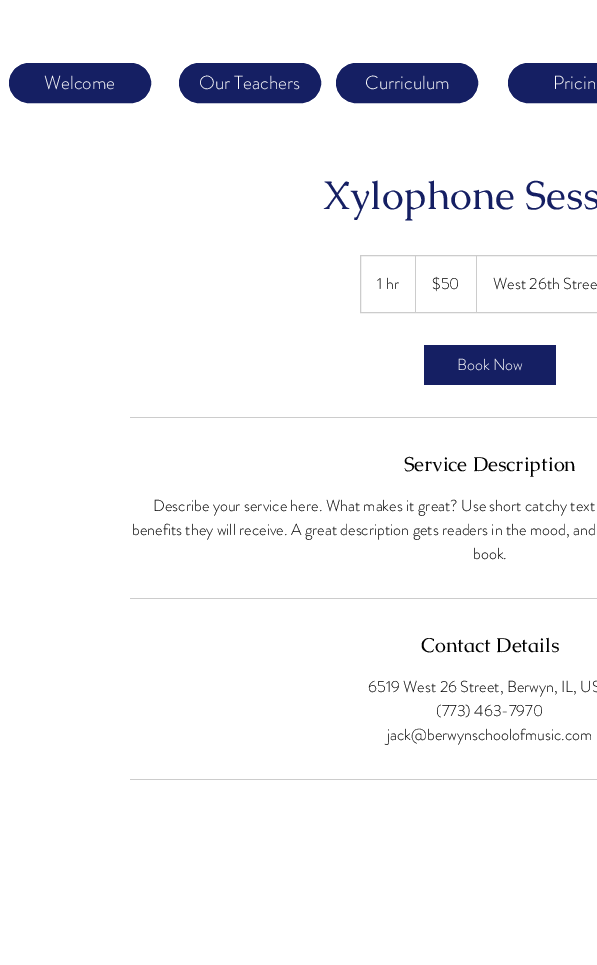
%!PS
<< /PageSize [597 965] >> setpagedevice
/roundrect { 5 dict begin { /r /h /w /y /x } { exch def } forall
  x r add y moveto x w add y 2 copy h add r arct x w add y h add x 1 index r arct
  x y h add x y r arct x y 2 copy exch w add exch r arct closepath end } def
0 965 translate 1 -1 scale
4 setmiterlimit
1 setgray
0 0 597 965 rectfill
0.082 0.122 0.388 setrgbcolor
9.5 63.5 141 39 19.5 roundrect gsave fill grestore
stroke
/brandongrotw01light-Light [19 0 0 -19 0 0] selectfont
1 setgray
44 89 moveto (Welcome) show
0.082 0.122 0.388 setrgbcolor
179.5 63.5 141 39 19.5 roundrect gsave fill grestore
stroke
1 setgray
199 89 moveto (Our Teachers) show
0.082 0.122 0.388 setrgbcolor
336.5 63.5 141 39 19.5 roundrect gsave fill grestore
stroke
1 setgray
365 89 moveto (Curriculum) show
0.082 0.122 0.388 setrgbcolor
508.5 63.5 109 39 19.5 roundrect gsave fill grestore
stroke
1 setgray
553 89 moveto (Pricin) show
/Caudex-Regular [40 0 0 -40 0 0] selectfont
0.082 0.122 0.388 setrgbcolor
323 209 moveto (Xylophone Sess) show
0.8 setgray
360.5 255.5 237 57 rectstroke
/brandongrotw01light-Light [16 0 0 -16 0 0] selectfont
0 setgray
377 289 moveto (1 hr) show
0.8 setgray
newpath 415 312 moveto 415 255 lineto 416 256 lineto 416 312 lineto closepath fill
0 setgray
432 289 moveto ($50) show
0.8 setgray
newpath 476 312 moveto 476 255 lineto 477 256 lineto 477 312 lineto closepath fill
0 setgray
493 289 moveto (West 26th Stree) show
0.082 0.122 0.388 setrgbcolor
424 345 132 40 rectfill
1 setgray
457 370 moveto (Book Now) show
0.8 setgray
130 417 467 1 rectfill
/Caudex-Regular [20 0 0 -20 0 0] selectfont
0 setgray
404 471 moveto (Service Description) show
/brandongrotw01light-Light [16 0 0 -16 0 0] selectfont
153 511 moveto (Describe your service here. What makes it great? Use short catchy text) show
132 535 moveto (benefits they will receive. A great description gets readers in the mood, and) show
473 559 moveto (book.) show
0.8 setgray
130 598 467 1 rectfill
/Caudex-Regular [20 0 0 -20 0 0] selectfont
0 setgray
421 652 moveto (Contact Details) show
/brandongrotw01light-Light [16 0 0 -16 0 0] selectfont
368 692 moveto (6519 West 26 Street, Berwyn, IL, US) show
436 716 moveto (\(773\) 463-7970) show
387 740 moveto (jack@berwynschoolofmusic.com) show
0.8 setgray
130 779 467 1 rectfill
showpage
